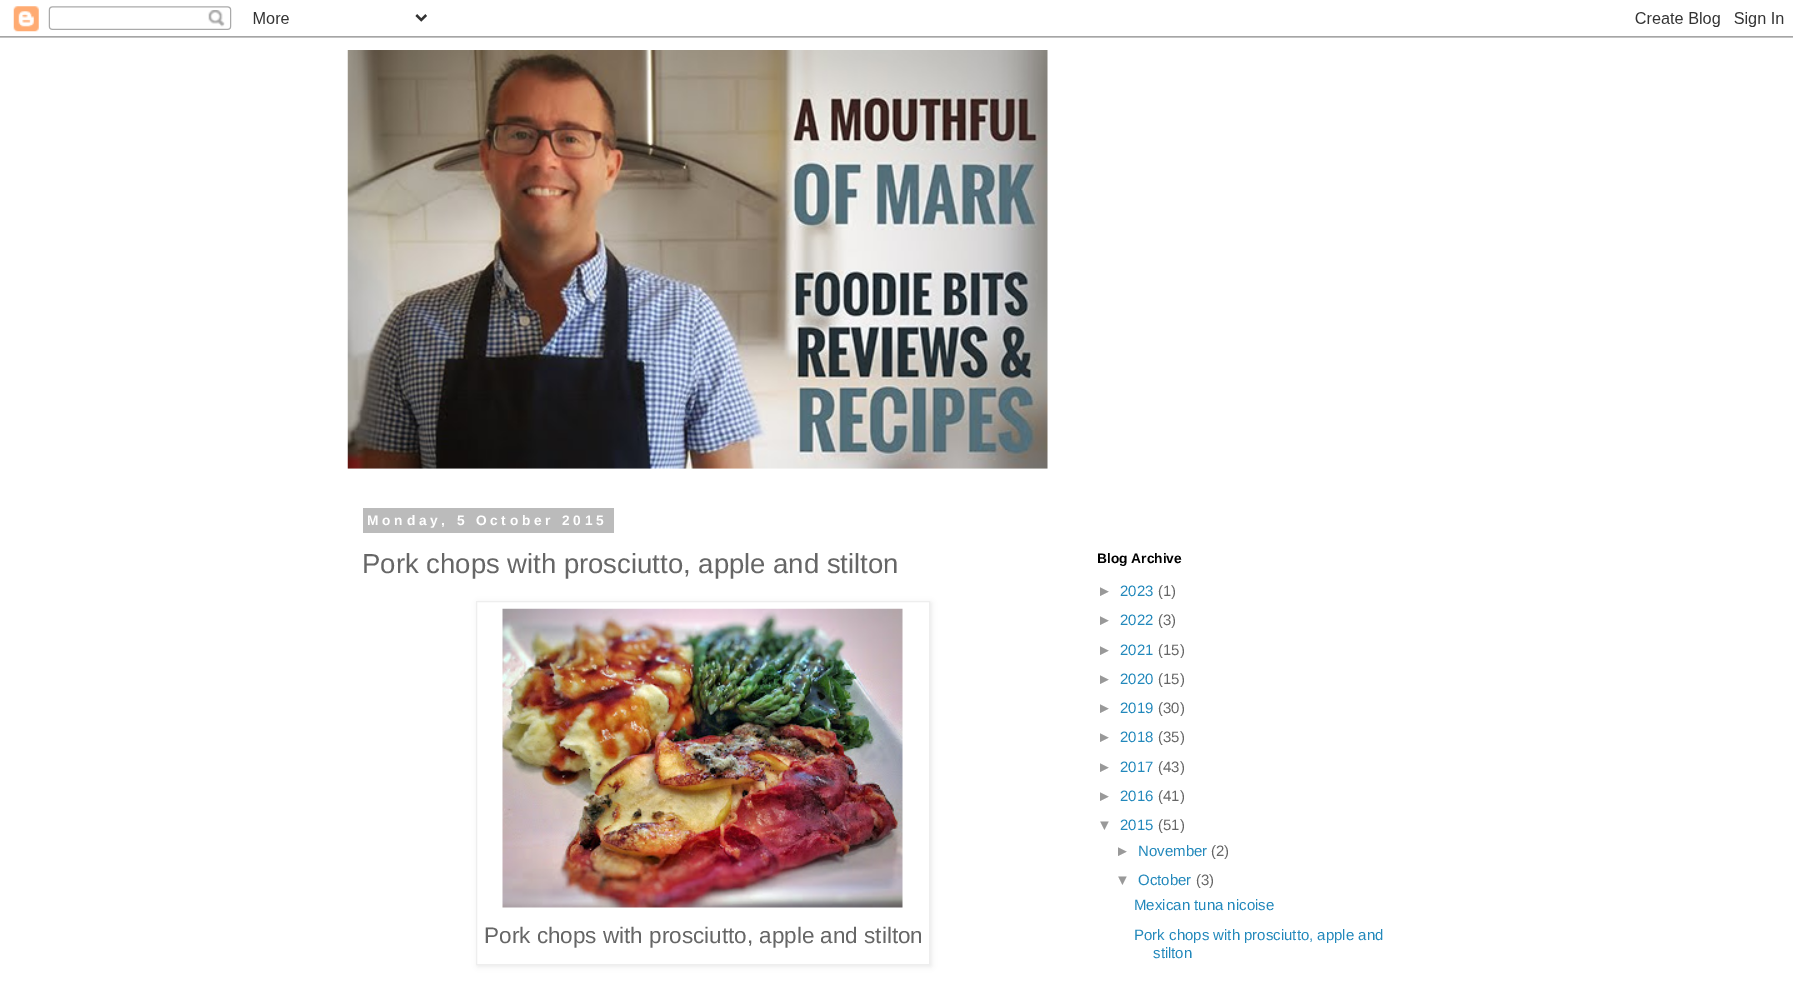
%!PS
<< /PageSize [1793 982] /PageUsesTransparency true >> setpagedevice
/alpha { dup .setfillconstantalpha .setstrokeconstantalpha } def
/roundrect { 5 dict begin { /r /h /w /y /x } { exch def } forall
  x r add y moveto x w add y 2 copy h add r arct x w add y h add x 1 index r arct
  x y h add x y r arct x y 2 copy exch w add exch r arct closepath end } def
/shadow { 12 dict begin { /a /b /q /h /w /y /x } { exch def } forall gsave /was 0 def
  9 -2 -9 { dup b mul 4 div /e exch def 1 sub .425 mul 2.718 exch exp 1 add a .99 .min exch div /now exch def
    1 1 now sub 1 was sub div sub alpha /was now def
    w h .min e 2 mul add 0 gt { x e sub y e sub w e 2 mul add h e 2 mul add
      q e add b .6 mul add w h .min 2 div e add .min 0 .max roundrect fill } if } for grestore end } def
/picture { 5 dict begin { /h /w /y /x /name } { exch def } forall
  gsave x y translate w h scale
  w h 8 [w 0 0 h 0 0] name (r) file false 3 colorimage grestore end } def
0 .pushpdf14devicefilter
0 982 translate 1 -1 scale
4 setmiterlimit
1 setgray
0 0 1793 982 rectfill
(img1.rgb) 0 6 1793 32 picture
(img2.rgb) 347 50 701 419 picture
0.733 setgray
363 508 251 25 rectfill
/LiberationSans-Bold [13.75 0 0 -13.75 0 0] selectfont
1 setgray
367 525 moveto 3.75 0 (Monday, 5 October 2015) ashow
/LiberationSans-Regular [27.5 0 0 -27.5 0 0] selectfont
0.4 setgray
362 573 moveto (Pork chops with prosciutto, apple and stilton) show
0 setgray
478 603 453 363 0 3 0.1 shadow
1 setgray
newpath 476.5 601.5 moveto 929.5 601.5 lineto 929.5 964.5 lineto 476.5 964.5 lineto closepath gsave fill grestore
0.933 setgray
stroke
(img3.rgb) 502 608 401 300 picture
/LiberationSans-Regular [22.5 0 0 -22.5 0 0] selectfont
0.4 setgray
484 943 moveto (Pork chops with prosciutto, apple and stilton) show
/LiberationSans-Bold [13.75 0 0 -13.75 0 0] selectfont
0 setgray
1097 563 moveto (Blog Archive) show
/LiberationSans-Regular [15 0 0 -15 0 0] selectfont
0.6 setgray
1097 596 moveto (►) show
0.133 0.533 0.733 setrgbcolor
1120 596 moveto (2023) show
0.4 setgray
1158 596 moveto (\(1\)) show
0.6 setgray
1097 625 moveto (►) show
0.133 0.533 0.733 setrgbcolor
1120 625 moveto (2022) show
0.4 setgray
1158 625 moveto (\(3\)) show
0.6 setgray
1097 655 moveto (►) show
0.133 0.533 0.733 setrgbcolor
1120 655 moveto (2021) show
0.4 setgray
1158 655 moveto (\(15\)) show
0.6 setgray
1097 684 moveto (►) show
0.133 0.533 0.733 setrgbcolor
1120 684 moveto (2020) show
0.4 setgray
1158 684 moveto (\(15\)) show
0.6 setgray
1097 713 moveto (►) show
0.133 0.533 0.733 setrgbcolor
1120 713 moveto (2019) show
0.4 setgray
1158 713 moveto (\(30\)) show
0.6 setgray
1097 742 moveto (►) show
0.133 0.533 0.733 setrgbcolor
1120 742 moveto (2018) show
0.4 setgray
1158 742 moveto (\(35\)) show
0.6 setgray
1097 772 moveto (►) show
0.133 0.533 0.733 setrgbcolor
1120 772 moveto (2017) show
0.4 setgray
1158 772 moveto (\(43\)) show
0.6 setgray
1097 801 moveto (►) show
0.133 0.533 0.733 setrgbcolor
1120 801 moveto (2016) show
0.4 setgray
1158 801 moveto (\(41\)) show
0.6 setgray
1097 830 moveto (▼) show
0.133 0.533 0.733 setrgbcolor
1120 830 moveto (2015) show
0.4 setgray
1158 830 moveto (\(51\)) show
0.6 setgray
1115 856 moveto (►) show
0.133 0.533 0.733 setrgbcolor
1138 856 moveto (November) show
0.4 setgray
1211 856 moveto (\(2\)) show
0.6 setgray
1115 885 moveto (▼) show
0.133 0.533 0.733 setrgbcolor
1138 885 moveto (October) show
0.4 setgray
1196 885 moveto (\(3\)) show
0.133 0.533 0.733 setrgbcolor
1134 910 moveto (Mexican tuna nicoise) show
1134 940 moveto (Pork chops with prosciutto, apple and) show
1153 958 moveto (stilton) show
.poppdf14devicefilter showpage
